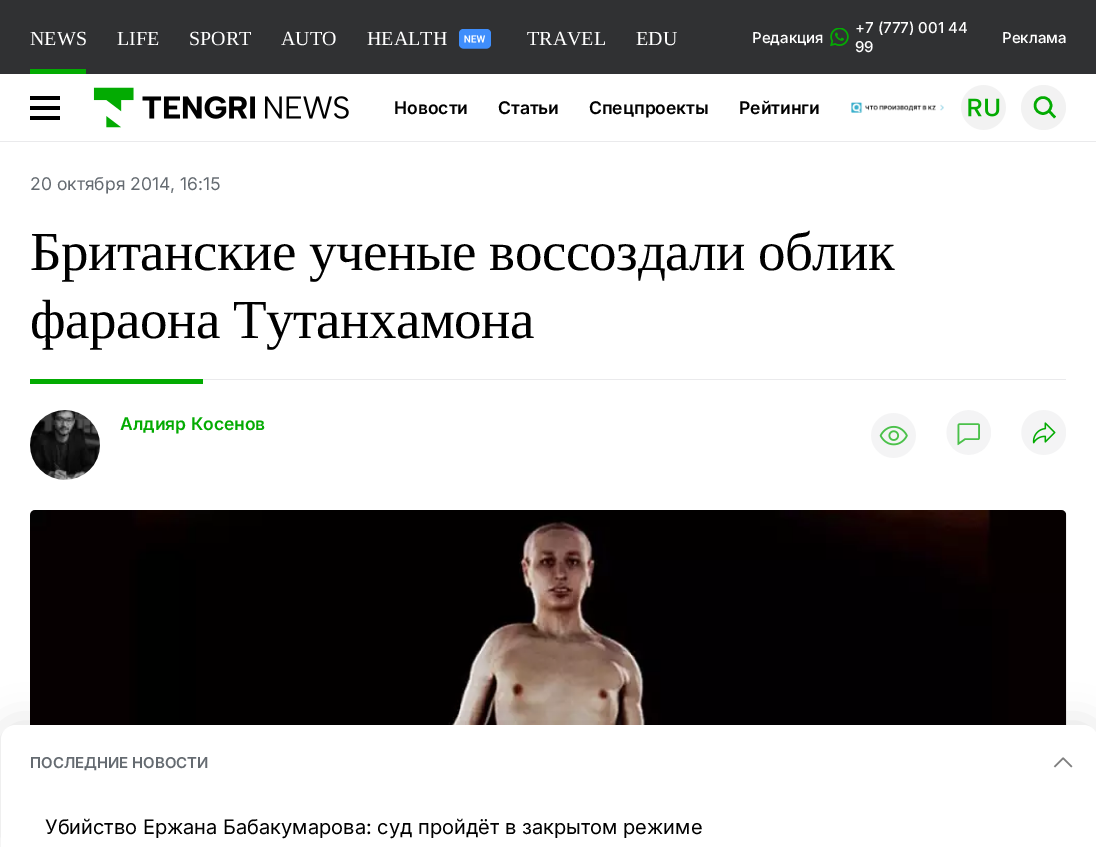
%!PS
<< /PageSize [1096 847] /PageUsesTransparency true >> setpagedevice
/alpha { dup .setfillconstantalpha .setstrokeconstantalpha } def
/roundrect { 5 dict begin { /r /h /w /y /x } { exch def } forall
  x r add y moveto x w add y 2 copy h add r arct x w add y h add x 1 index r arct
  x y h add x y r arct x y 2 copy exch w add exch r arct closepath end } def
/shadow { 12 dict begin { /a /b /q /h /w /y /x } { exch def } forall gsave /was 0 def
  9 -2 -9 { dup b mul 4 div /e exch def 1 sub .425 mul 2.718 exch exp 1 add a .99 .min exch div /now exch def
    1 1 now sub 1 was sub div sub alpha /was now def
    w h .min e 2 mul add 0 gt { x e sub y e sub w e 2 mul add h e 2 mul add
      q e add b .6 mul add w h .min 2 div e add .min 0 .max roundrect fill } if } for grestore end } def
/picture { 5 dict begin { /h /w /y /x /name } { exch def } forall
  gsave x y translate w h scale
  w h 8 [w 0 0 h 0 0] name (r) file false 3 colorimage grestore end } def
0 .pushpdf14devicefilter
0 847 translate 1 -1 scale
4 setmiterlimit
0.188 0.192 0.2 setrgbcolor
0 0 1096 847 rectfill
0.012 0.671 0.008 setrgbcolor
30 69 56 5 rectfill
/LiberationSerif-Regular [20 0 0 -20 0 0] selectfont
1 setgray
30 45 moveto (NEWS) show
117 45 moveto (LIFE) show
189 45 moveto (SPORT) show
281 45 moveto (AUTO) show
367 45 moveto (HEALTH) show
(img1.rgb) 459 29 32 20 picture
527 45 moveto (TRAVEL) show
636 45 moveto (EDU) show
/Inter-Medium [15 0 0 -15 0 0] selectfont
752 43 moveto (Редакция) show
(img2.rgb) 830 28 19 18 picture
855 33 moveto (+7 \(777\) 001 44) show
855 52 moveto (99) show
1002 43 moveto (Реклама) show
0 74 1096 773 rectfill
0.918 0.918 0.925 setrgbcolor
0 141 1096 1 rectfill
0 setgray
30 96 30 4 rectfill
30 106 30 4 rectfill
30 116 30 4 rectfill
(img3.rgb) 93 87 256 41 picture
/Inter-SemiBold [17.5 0 0 -17.5 0 0] selectfont
394 114 moveto (Новости) show
498 114 moveto (Статьи) show
589 114 moveto (Спецпроекты) show
739 114 moveto (Рейтинги) show
(img4.rgb) 851 102 93 11 picture
(img5.rgb) 961 85 45 45 picture
0.949 setgray
newpath 1043.5 107.5 22.5 0 360 arc closepath fill
0.012 0.671 0.008 setrgbcolor
2.5 setlinewidth
newpath 1043 105.5 8 0 360 arc closepath stroke
newpath 1049 111 moveto 1055 117.5 lineto stroke
/Inter-Regular [17.5 0 0 -17.5 0 0] selectfont
0.396 0.42 0.443 setrgbcolor
30 190 moveto (20 октября 2014, 16:15) show
0.918 0.918 0.925 setrgbcolor
203 379 863 1 rectfill
/LiberationSerif-Regular [55 0 0 -55 0 0] selectfont
0 setgray
30 270 moveto -0.55 0 (Британские ученые воссоздали облик) ashow
30 338 moveto -0.55 0 (фараона Тутанхамона) ashow
0.012 0.671 0.008 setrgbcolor
30 379 173 5 rectfill
(img6.rgb) 30 410 70 70 picture
/Inter-SemiBold [17.5 0 0 -17.5 0 0] selectfont
120 430 moveto (Алдияр Косенов) show
(img7.rgb) 871 413 45 45 picture
(img8.rgb) 946 410 45 45 picture
(img9.rgb) 1021 410 45 45 picture
(img10.rgb) 30 510 1037 215 picture
0 setgray
1 725 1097 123 15 19 0.12 shadow
1 setgray
newpath 16 725 moveto 1083 725 lineto 1091.5 725 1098 731.5 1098 740 curveto 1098 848 lineto 1 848 lineto 1 740 lineto 1 731.5 7.5 725 16 725 curveto closepath fill
/Inter-SemiBold [15 0 0 -15 0 0] selectfont
0.396 0.42 0.443 setrgbcolor
30 768 moveto (ПОСЛЕДНИЕ НОВОСТИ) show
(img11.rgb) 1053 757 20 11 picture
/Inter-Regular [20 0 0 -20 0 0] selectfont
0 setgray
45 834 moveto (Убийство Ержана Бабакумарова: суд пройдёт в закрытом режиме) show
.poppdf14devicefilter showpage
